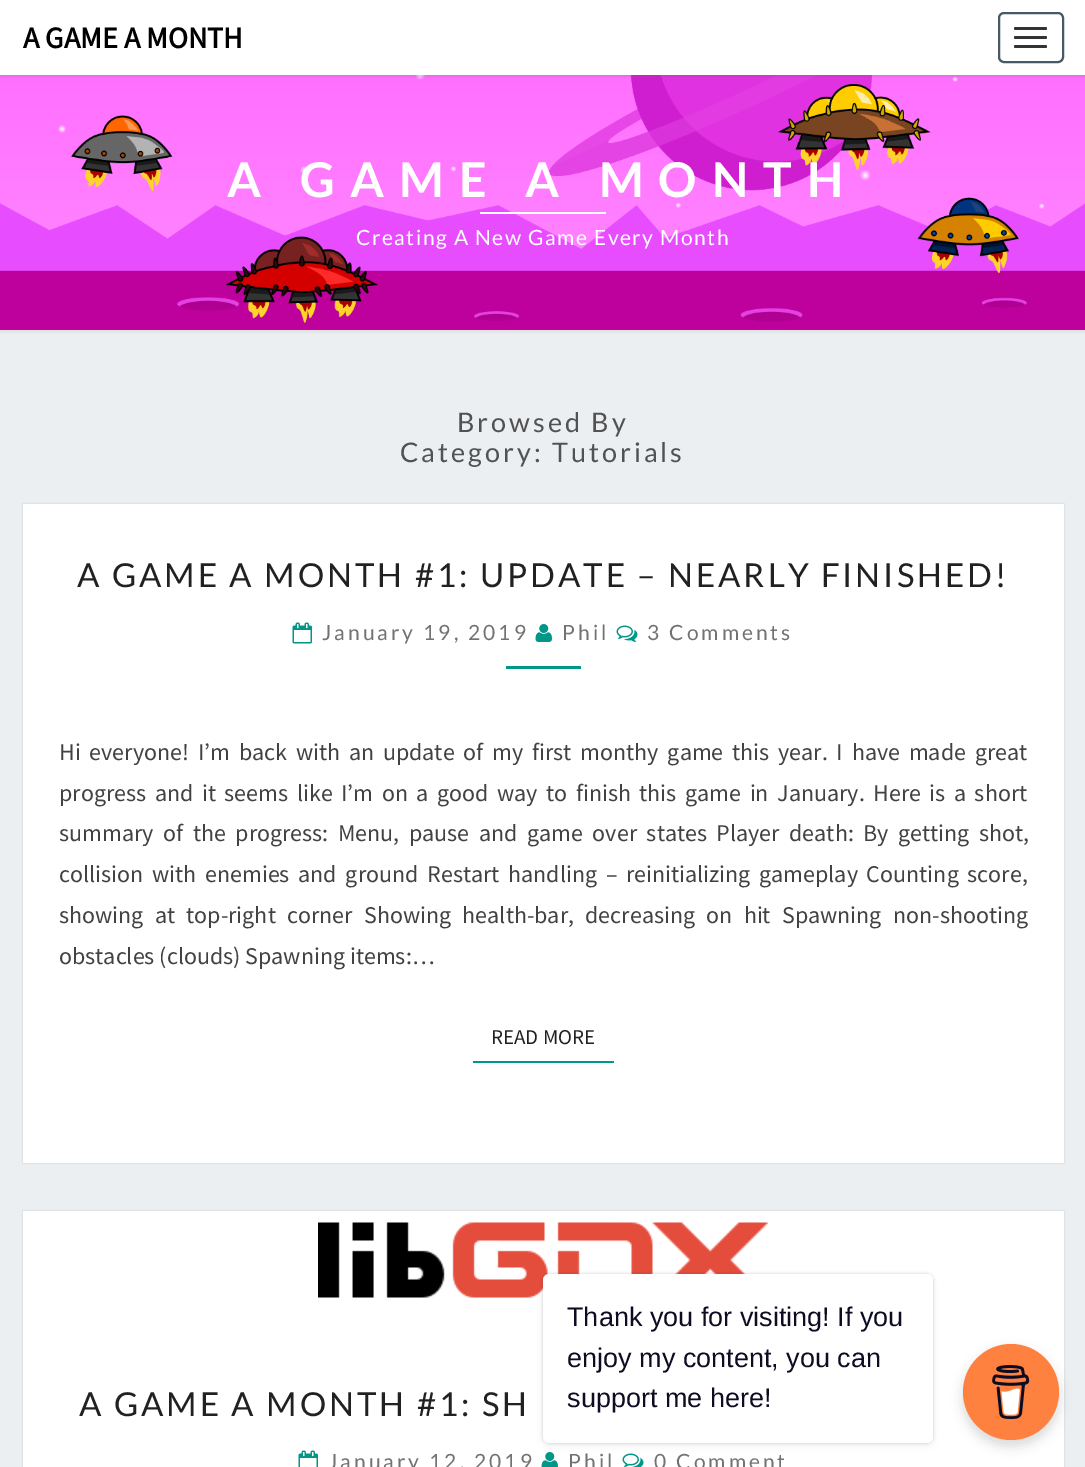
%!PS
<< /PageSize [1085 1467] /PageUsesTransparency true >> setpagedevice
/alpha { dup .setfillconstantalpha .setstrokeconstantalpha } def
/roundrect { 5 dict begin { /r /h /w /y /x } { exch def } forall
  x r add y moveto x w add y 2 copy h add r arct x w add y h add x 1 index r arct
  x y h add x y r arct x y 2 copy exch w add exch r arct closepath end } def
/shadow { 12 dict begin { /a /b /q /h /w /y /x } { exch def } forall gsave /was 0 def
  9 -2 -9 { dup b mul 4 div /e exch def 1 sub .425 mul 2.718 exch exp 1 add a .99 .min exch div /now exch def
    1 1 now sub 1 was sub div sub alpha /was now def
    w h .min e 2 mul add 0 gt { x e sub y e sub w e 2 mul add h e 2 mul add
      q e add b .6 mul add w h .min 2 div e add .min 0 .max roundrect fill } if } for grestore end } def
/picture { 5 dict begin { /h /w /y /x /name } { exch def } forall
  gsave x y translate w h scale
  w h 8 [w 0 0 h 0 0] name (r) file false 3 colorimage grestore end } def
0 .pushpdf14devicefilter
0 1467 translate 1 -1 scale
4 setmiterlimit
0.925 0.937 0.945 setrgbcolor
0 0 1085 1467 rectfill
0.714 setgray
-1 74 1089 258 0 1.5 0.3 shadow
(img1.rgb) 0 75 1085 255 picture
0.392 setgray
0 2 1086 75 0 1 0.2 shadow
1 setgray
0 0 1085 75 rectfill
/SourceSansPro-Bold [30 0 0 -30 0 0] selectfont
0 setgray
23 48 moveto (A GAME A MONTH) show
0.271 0.353 0.392 setrgbcolor
2 setlinewidth
999 13 64 49 5 roundrect stroke
0.2 setgray
1014 27 33 3 1.5 roundrect fill
1014 36 33 3 1.5 roundrect fill
1014 45 33 3 1.5 roundrect fill
/Lato-Bold [48 0 0 -48 0 0] selectfont
1 setgray
227 197 moveto 15 0 (A GAME A MONTH) ashow
480 212 126 2 rectfill
/Lato-Regular [21 0 0 -21 0 0] selectfont
356 245 moveto 1.5 0 (Creating A New Game Every Month) ashow
/Lato-Regular [27 0 0 -27 0 0] selectfont
0.322 setgray
457 432 moveto 3 0 (Browsed By) ashow
400 462 moveto 3 0 (Category: Tutorials) ashow
0 setgray
23 504 1041 659 0 1 0.15 shadow
1 setgray
23 504 1041 659 rectfill
/Lato-Regular [33 0 0 -33 0 0] selectfont
0.129 setgray
77 587 moveto 3 0 (A GAME A MONTH #1: UPDATE – NEARLY FINISHED!) ashow
(img2.rgb) 292 622 20 22 picture
/Lato-Regular [21 0 0 -21 0 0] selectfont
0.447 setgray
322 640 moveto 3 0 (January 19, 2019) ashow
(img3.rgb) 535 624 17 18 picture
562 640 moveto 3 0 (Phil) ashow
(img4.rgb) 616 625 22 17 picture
647 640 moveto 3 0 (3 Comments) ashow
0 0.588 0.533 setrgbcolor
506 666 75 3 rectfill
/SourceSansPro-Regular [24 0 0 -24 0 0] selectfont
0.259 setgray
59 760 moveto 4 0 32 (Hi everyone! I’m back with an update of my first monthy game this year. I have made great) widthshow
59 801 moveto 3.75 0 32 (progress and it seems like I’m on a good way to finish this game in January. Here is a short) widthshow
59 841 moveto 4.75 0 32 (summary of the progress: Menu, pause and game over states Player death: By getting shot,) widthshow
59 882 moveto 3.9 0 32 (collision with enemies and ground Restart handling – reinitializing gameplay Counting score,) widthshow
59 923 moveto 6.5 0 32 (showing at top-right corner Showing health-bar, decreasing on hit Spawning non-shooting) widthshow
59 964 moveto (obstacles \(clouds\) Spawning items:…) show
0 0.588 0.533 setrgbcolor
473 1061 141 2 rectfill
/SourceSansPro-Regular [21 0 0 -21 0 0] selectfont
0.129 setgray
491 1044 moveto (READ MORE) show
0 setgray
23 1211 1041 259 0 1 0.15 shadow
1 setgray
23 1211 1041 256 rectfill
(img5.rgb) 318 1222 450 76 picture
/Lato-Regular [33 0 0 -33 0 0] selectfont
0.129 setgray
79 1416 moveto 3 0 (A GAME A MONTH #1: SH) ashow
(img6.rgb) 298 1450 20 17 picture
/Lato-Regular [21 0 0 -21 0 0] selectfont
0.447 setgray
328 1469 moveto 3 0 (January 12, 2019) ashow
(img7.rgb) 541 1452 17 15 picture
568 1469 moveto 3 0 (Phil) ashow
(img8.rgb) 622 1453 22 14 picture
654 1469 moveto 3 0 (0 Comment) ashow
0 setgray
543 1274 390 169 6 1.5 0.15 shadow
543 1277 390 169 6 4 0.05 shadow
1 setgray
543 1274 390 169 6 roundrect fill
/LiberationSans-Regular [27 0 0 -27 0 0] selectfont
0.051 0.047 0.133 setrgbcolor
567 1326 moveto (Thank you for visiting! If you) show
567 1367 moveto (enjoy my content, you can) show
567 1407 moveto (support me here!) show
0 setgray
963 1350 96 96 48 6 0.15 shadow
1 0.506 0.247 setrgbcolor
newpath 1011 1392 48 0 360 arc closepath fill
(img9.rgb) 992 1365 38 54 picture
.poppdf14devicefilter showpage
